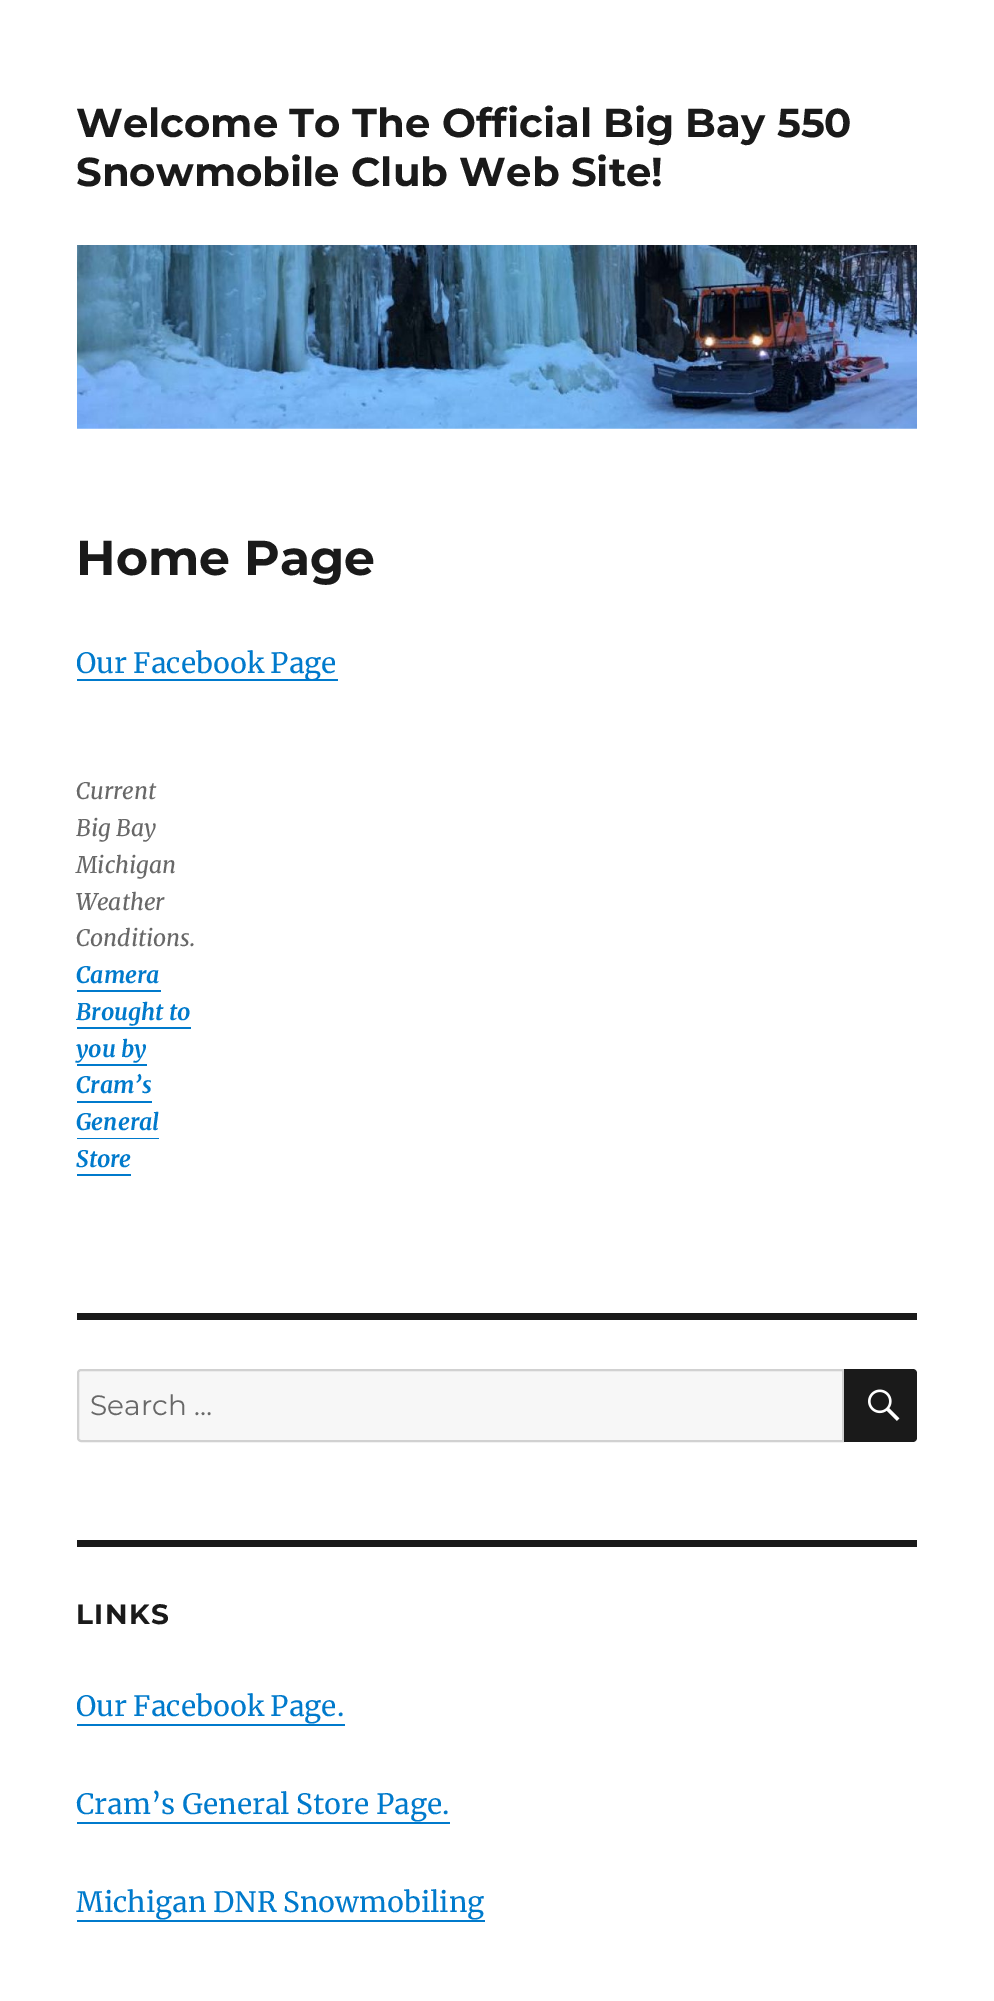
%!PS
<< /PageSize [994 2001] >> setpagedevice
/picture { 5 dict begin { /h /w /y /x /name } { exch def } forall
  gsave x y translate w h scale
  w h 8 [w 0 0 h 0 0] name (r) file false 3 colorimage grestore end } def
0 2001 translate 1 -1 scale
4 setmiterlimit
1 setgray
0 0 994 2001 rectfill
/Montserrat-Thin [40.25 0 0 -40.25 0 0] selectfont
0.102 setgray
76 137 moveto (Welcome To The Official Big Bay 550) show
76 186 moveto (Snowmobile Club Web Site!) show
(img1.rgb) 77 245 840 184 picture
/Montserrat-Thin [49 0 0 -49 0 0] selectfont
76 575 moveto (Home Page) show
0 0.478 0.8 setrgbcolor
newpath 77 679 moveto 77 681 lineto 338 681 lineto 338 646 lineto 338 679 lineto closepath fill
/Merriweather-Regular [28 0 0 -28 0 0] selectfont
76 673 moveto (Our Facebook Page) show
/Merriweather-Italic [22.75 0 0 -22.75 0 0] selectfont
0.408 setgray
76 799 moveto (Current) show
76 836 moveto (Big Bay) show
76 873 moveto (Michigan) show
76 910 moveto (Weather) show
76 946 moveto (Conditions.) show
/Merriweather-BoldItalic [22.75 0 0 -22.75 0 0] selectfont
0 0.478 0.8 setrgbcolor
76 983 moveto (Camera) show
77 990 84 2 rectfill
76 1020 moveto (Brought to) show
newpath 77 1027 moveto 77 1029 lineto 191 1029 lineto 191 999 lineto 191 1027 lineto closepath fill
76 1057 moveto (you by) show
77 1064 70 2 rectfill
76 1093 moveto (Cram’s) show
77 1101 75 2 rectfill
76 1130 moveto (General) show
77 1138 82 1 rectfill
76 1167 moveto (Store) show
77 1174 54 2 rectfill
0.102 setgray
77 1313 840 7 rectfill
0.969 setgray
newpath 81 1370 moveto 843 1370 lineto 843 1441 lineto 81 1441 lineto 79.5 1441 78 1439.5 78 1438 curveto 78 1373 lineto 78 1371.5 79.5 1370 81 1370 curveto closepath gsave fill grestore
0.82 setgray
2 setlinewidth
stroke
/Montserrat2-Thin [28 0 0 -28 0 0] selectfont
0.408 setgray
90 1415 moveto (Search …) show
0.102 setgray
newpath 844 1369 moveto 913 1369 lineto 915 1369 917 1371 917 1373 curveto 917 1438 lineto 917 1440 915 1442 913 1442 curveto 844 1442 lineto closepath fill
(img2.rgb) 868 1389 32 32 picture
77 1540 840 7 rectfill
/Montserrat-Thin [28 0 0 -28 0 0] selectfont
76 1624 moveto 1.5 0 (LINKS) ashow
/Merriweather-Regular [28 0 0 -28 0 0] selectfont
0 0.478 0.8 setrgbcolor
76 1716 moveto (Our Facebook Page.) show
newpath 77 1724 moveto 77 1726 lineto 345 1726 lineto 345 1691 lineto 345 1724 lineto closepath fill
76 1814 moveto (Cram’s General Store Page.) show
newpath 77 1822 moveto 77 1824 lineto 450 1824 lineto 450 1789 lineto 450 1822 lineto closepath fill
76 1912 moveto (Michigan DNR Snowmobiling) show
newpath 77 1920 moveto 77 1922 lineto 485 1922 lineto 485 1887 lineto 485 1920 lineto closepath fill
showpage
